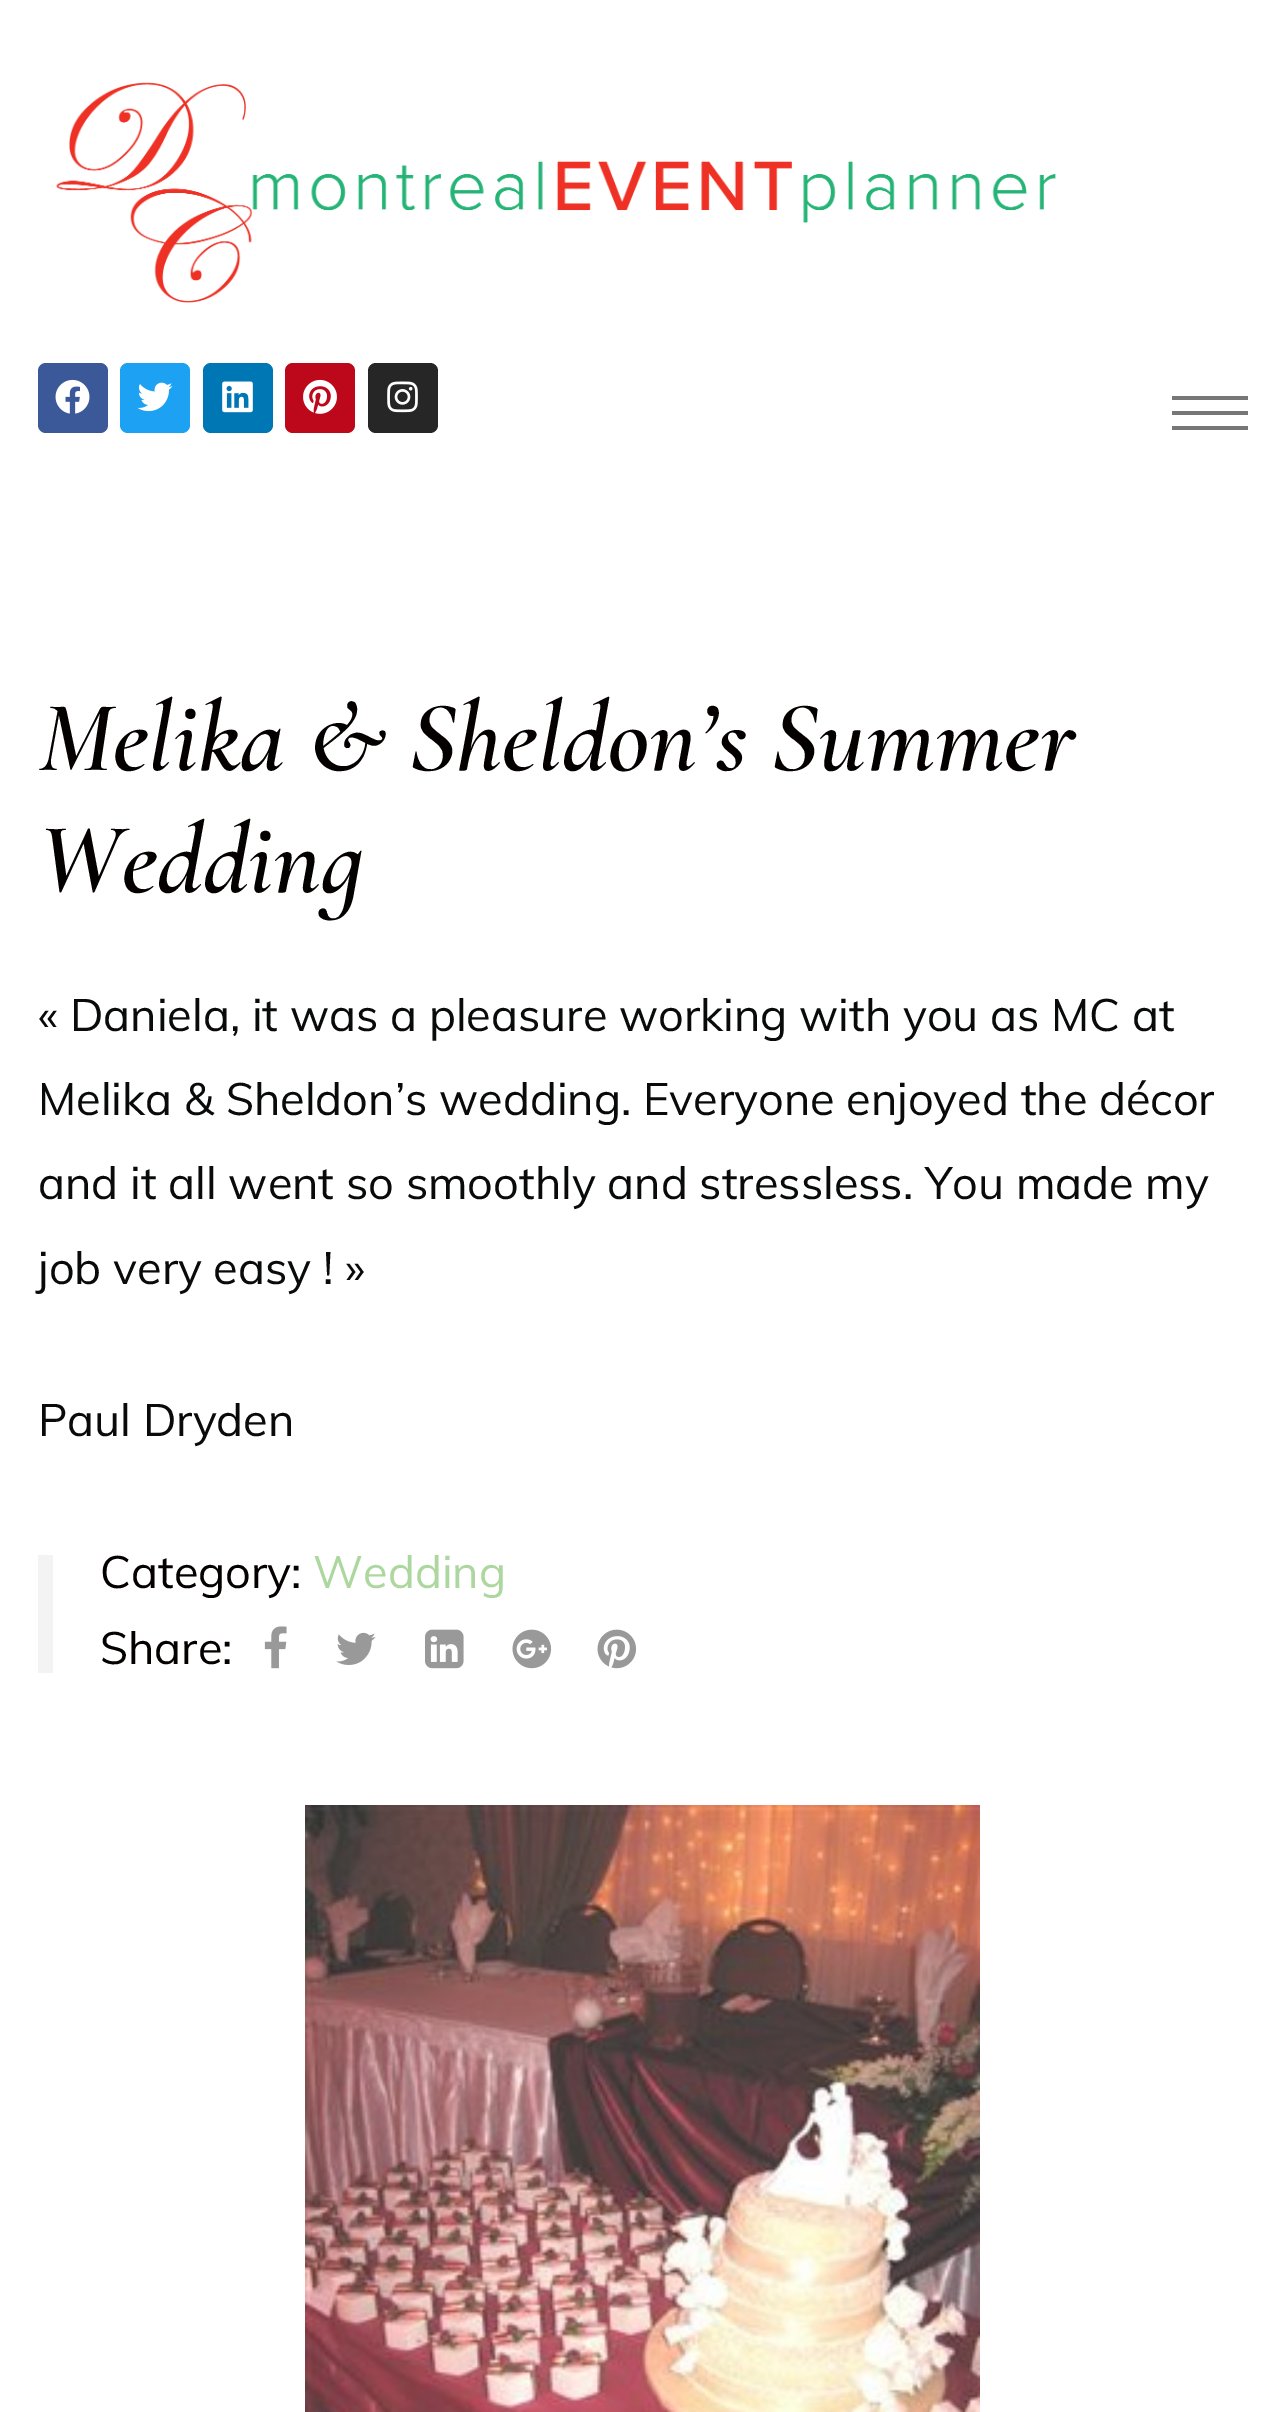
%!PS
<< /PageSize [1283 2412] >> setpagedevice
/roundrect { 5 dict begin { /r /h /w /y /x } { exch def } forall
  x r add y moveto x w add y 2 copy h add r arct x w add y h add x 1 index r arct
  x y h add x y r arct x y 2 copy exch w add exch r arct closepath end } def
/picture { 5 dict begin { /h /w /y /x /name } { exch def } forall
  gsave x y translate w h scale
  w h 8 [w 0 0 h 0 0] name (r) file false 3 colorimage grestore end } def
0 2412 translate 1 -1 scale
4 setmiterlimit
1 setgray
0 0 1283 2412 rectfill
(img1.rgb) 56 82 1000 221 picture
0.231 0.349 0.596 setrgbcolor
38 363 70 70 8 roundrect fill
(img2.rgb) 55 379 35 35 picture
0.114 0.631 0.949 setrgbcolor
120 363 70 70 8 roundrect fill
(img3.rgb) 137 382 36 30 picture
0 0.467 0.71 setrgbcolor
203 363 70 70 8 roundrect fill
(img4.rgb) 222 381 31 32 picture
0.741 0.031 0.11 setrgbcolor
285 363 70 70 8 roundrect fill
(img5.rgb) 303 379 34 35 picture
0.149 setgray
368 363 70 70 8 roundrect fill
(img6.rgb) 387 381 31 32 picture
0.467 setgray
newpath 1172 430 moveto 1248 430 lineto 1248 426 lineto 1172 426 lineto closepath 1172 415 moveto 1248 415 lineto 1248 411 lineto 1172 411 lineto closepath 1172 396 moveto 1172 400 lineto 1248 400 lineto 1248 396 lineto closepath fill
/CormorantInfant-SemiBoldItalic [101.25 0 0 -101.25 0 0] selectfont
0.02 0 0 setrgbcolor
38 770 moveto (Melika & Sheldon’s Summer) show
38 892 moveto (Wedding) show
/Muli-Regular [45 0 0 -45 0 0] selectfont
0.035 0.039 0.039 setrgbcolor
38 1031 moveto (« Daniela, it was a pleasure working with you as MC at) show
38 1115 moveto (Melika & Sheldon’s wedding. Everyone enjoyed the décor) show
38 1199 moveto (and it all went so smoothly and stressless. You made my) show
38 1284 moveto (job very easy ! ») show
38 1436 moveto (Paul Dryden) show
0.953 setgray
38 1555 15 118 rectfill
0.02 0 0 setrgbcolor
100 1588 moveto (Category:) show
0.675 0.843 0.62 setrgbcolor
313 1588 moveto (Wedding) show
0.02 0 0 setrgbcolor
100 1664 moveto (Share:) show
(img7.rgb) 264 1626 23 43 picture
(img8.rgb) 336 1632 40 33 picture
(img9.rgb) 425 1629 39 40 picture
(img10.rgb) 512 1629 40 40 picture
(img11.rgb) 597 1629 40 40 picture
(img12.rgb) 305 1805 675 607 picture
showpage
